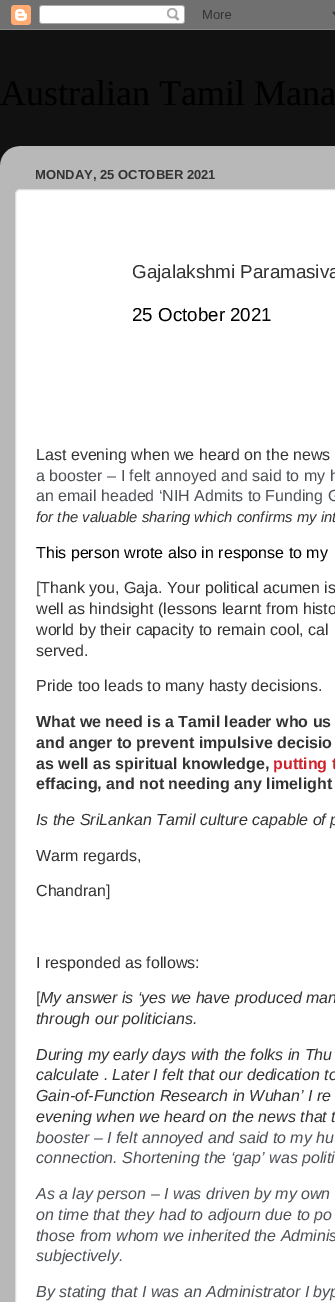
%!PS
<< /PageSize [335 1302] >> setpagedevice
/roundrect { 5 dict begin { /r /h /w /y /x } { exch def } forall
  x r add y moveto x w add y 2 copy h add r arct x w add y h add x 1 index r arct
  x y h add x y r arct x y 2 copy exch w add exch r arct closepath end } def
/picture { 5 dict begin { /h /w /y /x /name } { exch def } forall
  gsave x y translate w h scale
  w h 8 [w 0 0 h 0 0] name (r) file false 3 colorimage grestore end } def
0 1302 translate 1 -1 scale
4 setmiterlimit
0.067 setgray
0 0 335 1302 rectfill
(img1.rgb) 0 0 335 30 picture
/LiberationSerif-Regular [36 0 0 -36 0 0] selectfont
0 setgray
0 105 moveto (Australian Tamil Mana) show
(img2.rgb) 0 146 335 1156 picture
/LiberationSans-Bold [13 0 0 -13 0 0] selectfont
0.2 setgray
35 179 moveto (MONDAY, 25 OCTOBER 2021) show
1 setgray
15.5 189.5 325 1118 4.5 roundrect gsave fill grestore
0.867 setgray
stroke
/LiberationSans-Regular [18.75 0 0 -18.75 0 0] selectfont
0.2 setgray
132 278 moveto (Gajalakshmi Paramasiva) show
0 setgray
132 321 moveto (25 October 2021) show
/LiberationSans-Regular [16 0 0 -16 0 0] selectfont
0.2 setgray
36 460 moveto (Last evening when we heard on the news) show
0.302 0.318 0.337 setrgbcolor
36 481 moveto (a booster – I felt annoyed and said to my h) show
36 501 moveto (an email headed ‘NIH Admits to Funding G) show
/LiberationSans-Italic [14.85 0 0 -14.85 0 0] selectfont
0.2 setgray
36 522 moveto (for the valuable sharing which confirms my int) show
/LiberationSans-Regular [16 0 0 -16 0 0] selectfont
0 setgray
36 558 moveto (This person wrote also in response to my) show
0.2 setgray
36 593 moveto ([Thank you, Gaja. Your political acumen is) show
36 614 moveto (well as hindsight \(lessons learnt from histo) show
36 635 moveto (world by their capacity to remain cool, cal) show
36 656 moveto (served.) show
36 691 moveto (Pride too leads to many hasty decisions.) show
/LiberationSans-Bold [16 0 0 -16 0 0] selectfont
36 727 moveto (What we need is a Tamil leader who us) show
36 748 moveto (and anger to prevent impulsive decisio) show
36 769 moveto (as well as spiritual knowledge,) show
0.804 0.137 0.173 setrgbcolor
273 769 moveto (putting t) show
0.2 setgray
36 789 moveto (effacing, and not needing any limelight) show
/LiberationSans-Italic [16 0 0 -16 0 0] selectfont
36 825 moveto (Is the SriLankan Tamil culture capable of p) show
/LiberationSans-Regular [16 0 0 -16 0 0] selectfont
36 861 moveto (Warm regards,) show
36 896 moveto (Chandran]) show
36 968 moveto (I responded as follows:) show
36 1003 moveto ([) show
/LiberationSans-Italic [16 0 0 -16 0 0] selectfont
40 1003 moveto (My answer is ‘yes we have produced man) show
36 1024 moveto (through our politicians.) show
36 1060 moveto (During my early days with the folks in Thu) show
36 1080 moveto (calculate . Later I felt that our dedication to) show
36 1101 moveto (Gain-of-Function Research in Wuhan’ I re) show
36 1122 moveto (evening when we heard on the news that t) show
0.302 0.318 0.337 setrgbcolor
36 1143 moveto (booster – I felt annoyed and said to my hu) show
36 1163 moveto (connection. Shortening the ‘gap’ was politi) show
36 1199 moveto (As a lay person – I was driven by my own) show
36 1220 moveto (on time that they had to adjourn due to po) show
36 1241 moveto (those from whom we inherited the Adminis) show
36 1261 moveto (subjectively.) show
36 1297 moveto (By stating that I was an Administrator I byp) show
showpage
